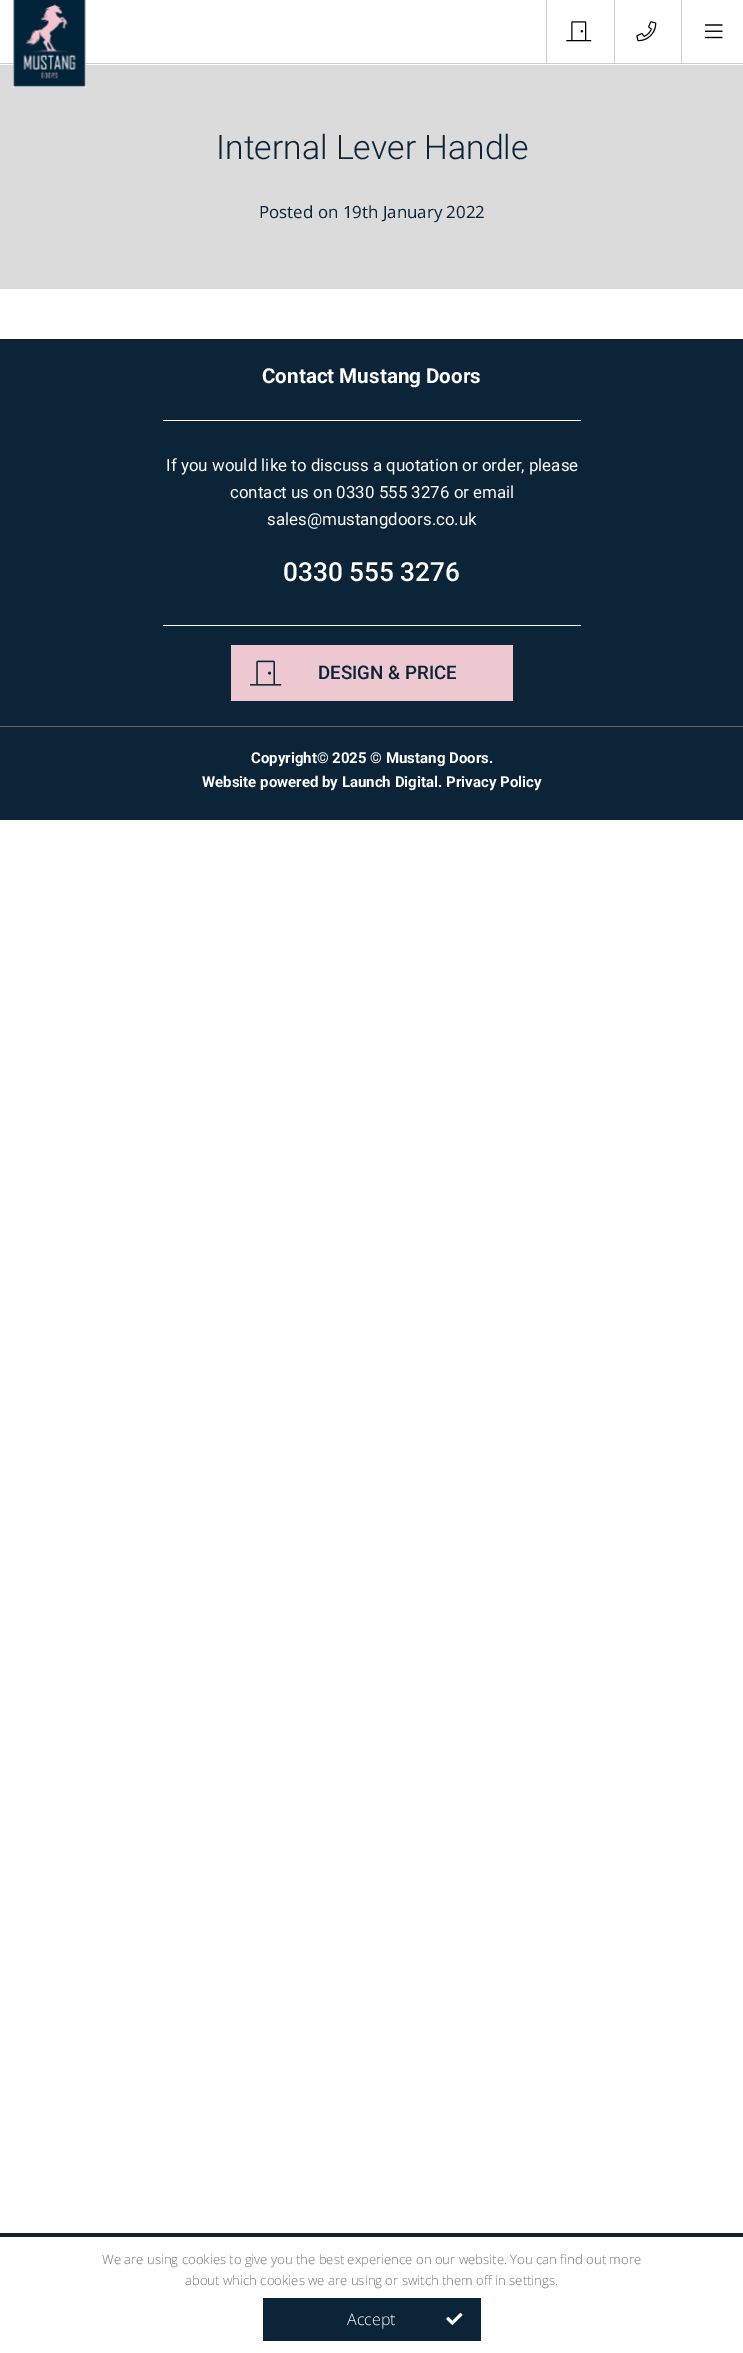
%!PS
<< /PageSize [743 2353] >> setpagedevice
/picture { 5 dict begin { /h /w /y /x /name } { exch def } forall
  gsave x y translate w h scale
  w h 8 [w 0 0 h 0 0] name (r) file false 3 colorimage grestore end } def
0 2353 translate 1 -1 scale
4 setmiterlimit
1 setgray
0 0 743 2353 rectfill
0.8 setgray
0 63 743 1 rectfill
0.859 setgray
0 65 743 224 rectfill
1 setgray
85 63 1 25 rectfill
13 86 73 1 rectfill
13 63 1 25 rectfill
(img1.rgb) 13 0 73 87 picture
0.8 setgray
546 0 1 63 rectfill
(img2.rgb) 566 21 26 21 picture
614 0 1 63 rectfill
(img3.rgb) 636 21 21 21 picture
681 0 1 63 rectfill
(img4.rgb) 705 24 18 15 picture
/Roboto-Light [33.75 0 0 -33.75 0 0] selectfont
0.043 0.141 0.22 setrgbcolor
216 159 moveto (Internal Lever Handle) show
/OpenSans-Regular [16.9 0 0 -16.9 0 0] selectfont
259 218 moveto (Posted on 19th January 2022) show
0 339 743 481 rectfill
0.388 setgray
0 726 743 1 rectfill
/Roboto-Bold [20.6 0 0 -20.6 0 0] selectfont
1 setgray
262 383 moveto (Contact Mustang Doors) show
163 420 418 1 rectfill
163 625 418 1 rectfill
/Roboto-Regular [16.9 0 0 -16.9 0 0] selectfont
166 471 moveto (If you would like to discuss a quotation or order, please) show
230 498 moveto (contact us on 0330 555 3276 or email) show
267 525 moveto (sales@mustangdoors.co.uk) show
/Roboto-Medium [26.25 0 0 -26.25 0 0] selectfont
283 581 moveto (0330 555 3276) show
0.929 0.784 0.816 setrgbcolor
231 645 282 56 rectfill
(img5.rgb) 250 660 32 26 picture
/Roboto-Medium [18.75 0 0 -18.75 0 0] selectfont
0.043 0.141 0.22 setrgbcolor
318 679 moveto (DESIGN & PRICE) show
/Roboto-Bold [15 0 0 -15 0 0] selectfont
1 setgray
251 763 moveto (Copyright© 2025 © Mustang Doors.) show
202 787 moveto (Website powered by Launch Digital. Privacy Policy) show
0.043 0.141 0.22 setrgbcolor
0 2233 743 4 rectfill
/OpenSans-Light [13.1 0 0 -13.1 0 0] selectfont
0.439 setgray
102 2264 moveto (We are using cookies to give you the best experience on our website. You can find out more) show
185 2285 moveto (about which cookies we are using or switch them off in settings.) show
0.043 0.141 0.22 setrgbcolor
263 2298 218 43 rectfill
/OpenSans-Light [16 0 0 -16 0 0] selectfont
1 setgray
347 2325 moveto (Accept) show
(img6.rgb) 446 2312 17 13 picture
showpage
